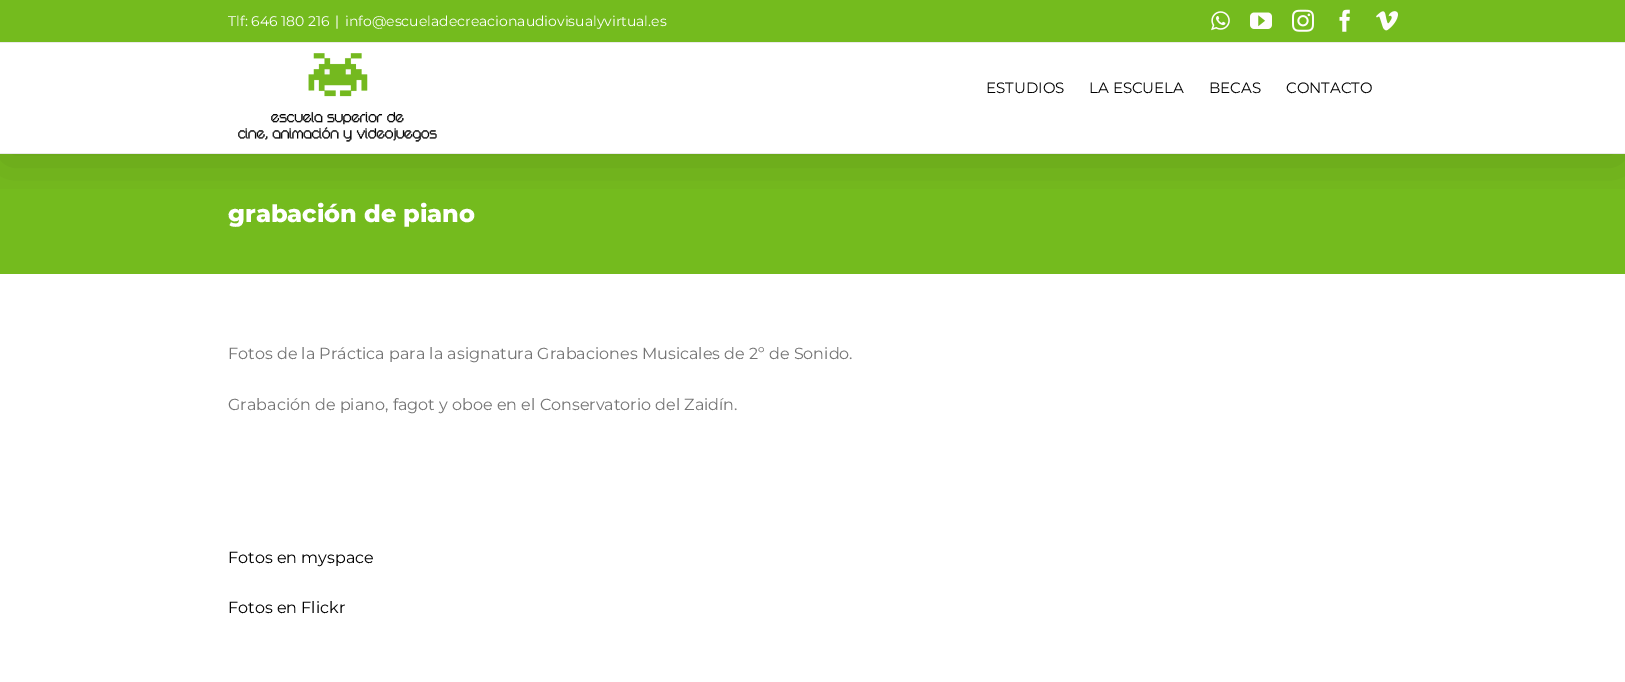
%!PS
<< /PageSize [1625 682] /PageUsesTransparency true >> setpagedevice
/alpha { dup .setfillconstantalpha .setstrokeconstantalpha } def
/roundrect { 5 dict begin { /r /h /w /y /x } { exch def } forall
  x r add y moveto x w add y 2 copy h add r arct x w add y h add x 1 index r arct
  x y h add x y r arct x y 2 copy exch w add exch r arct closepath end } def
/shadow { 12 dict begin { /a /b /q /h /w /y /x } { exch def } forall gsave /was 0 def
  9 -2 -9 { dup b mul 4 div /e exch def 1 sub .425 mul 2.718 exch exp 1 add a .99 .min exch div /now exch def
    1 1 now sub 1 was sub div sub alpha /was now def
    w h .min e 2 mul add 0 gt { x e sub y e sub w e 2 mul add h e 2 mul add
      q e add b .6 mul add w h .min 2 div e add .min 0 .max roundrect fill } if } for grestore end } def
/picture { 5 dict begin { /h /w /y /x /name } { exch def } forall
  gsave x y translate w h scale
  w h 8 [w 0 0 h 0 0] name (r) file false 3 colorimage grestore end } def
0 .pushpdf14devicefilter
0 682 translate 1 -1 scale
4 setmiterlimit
1 setgray
0 0 1625 682 rectfill
0.455 0.733 0.118 setrgbcolor
0 154 1625 120 rectfill
gsave
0 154 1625 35 rectclip
0 setgray
2 12 1621 150 0 25 0.14 shadow
grestore
0 0 1625 42 rectfill
0.918 setgray
0 42 1625 1 rectfill
/Montserrat-Regular [14 0 0 -14 0 0] selectfont
1 setgray
228 26 moveto (Tlf: 646 180 216) show
335 26 moveto (|) show
345 26 moveto (info@escueladecreacionaudiovisualyvirtual.es) show
(img1.rgb) 1211 11 19 20 picture
(img2.rgb) 1250 12 22 17 picture
(img3.rgb) 1292 9 22 23 picture
(img4.rgb) 1339 9 11 23 picture
(img5.rgb) 1376 11 22 20 picture
0.918 setgray
0 153 1625 1 rectfill
(img6.rgb) 238 53 199 89 picture
/Montserrat-Regular [15 0 0 -15 0 0] selectfont
0 setgray
986 93 moveto (ESTUDIOS) show
1089 93 moveto (LA ESCUELA) show
1209 93 moveto (BECAS) show
1286 93 moveto (CONTACTO) show
/Montserrat-ExtraBold [24 0 0 -24 0 0] selectfont
1 setgray
228 222 moveto (grabación de piano) show
/Montserrat-Regular [16 0 0 -16 0 0] selectfont
0.455 setgray
228 359 moveto (Fotos de la Práctica para la asignatura Grabaciones Musicales de 2º de Sonido.) show
228 410 moveto (Grabación de piano, fagot y oboe en el Conservatorio del Zaidín.) show
0 setgray
228 563 moveto (Fotos en myspace) show
228 613 moveto (Fotos en Flickr) show
.poppdf14devicefilter showpage
